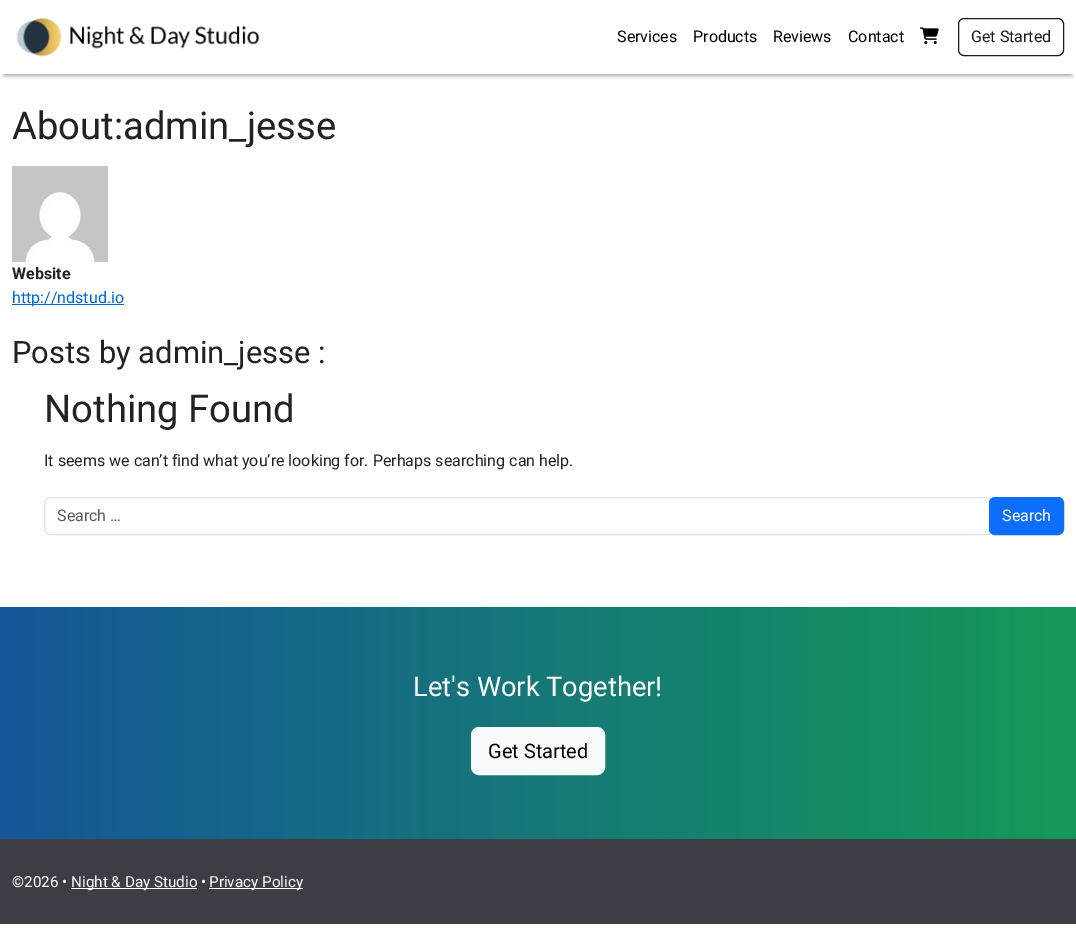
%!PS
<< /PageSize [1076 944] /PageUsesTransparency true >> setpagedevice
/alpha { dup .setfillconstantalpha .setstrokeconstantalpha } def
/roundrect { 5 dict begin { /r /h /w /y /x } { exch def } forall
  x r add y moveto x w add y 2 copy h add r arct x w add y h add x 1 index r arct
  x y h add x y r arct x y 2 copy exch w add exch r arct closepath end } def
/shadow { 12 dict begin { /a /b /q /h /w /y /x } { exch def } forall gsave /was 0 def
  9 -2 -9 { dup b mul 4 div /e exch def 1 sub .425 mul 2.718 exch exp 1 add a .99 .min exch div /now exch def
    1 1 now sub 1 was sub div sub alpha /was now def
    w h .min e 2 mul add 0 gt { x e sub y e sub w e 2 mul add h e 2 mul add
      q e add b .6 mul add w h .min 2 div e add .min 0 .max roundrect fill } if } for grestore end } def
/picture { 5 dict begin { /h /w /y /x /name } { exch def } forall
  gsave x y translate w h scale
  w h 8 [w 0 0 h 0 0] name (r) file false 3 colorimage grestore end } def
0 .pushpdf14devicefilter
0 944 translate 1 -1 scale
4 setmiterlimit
1 setgray
0 0 1076 944 rectfill
gsave
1 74 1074 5 rectclip
0 setgray
4 10 1068 66 0 2 0.33 shadow
grestore
(img1.rgb) 16 17 244 40 picture
/Roboto-Regular [16 0 0 -16 0 0] selectfont
0 setgray
617 42 moveto (Services) show
693 42 moveto (Products) show
773 42 moveto (Reviews) show
848 42 moveto (Contact) show
(img2.rgb) 920 27 19 18 picture
0.082 0.106 0.149 setrgbcolor
958.5 18.5 105 37 5.5 roundrect stroke
971 42 moveto (Get Started) show
/Roboto-Regular [38.25 0 0 -38.25 0 0] selectfont
0.133 setgray
12 139 moveto (About:admin_jesse) show
(img3.rgb) 12 166 96 96 picture
/Roboto-Bold [16 0 0 -16 0 0] selectfont
12 279 moveto (Website) show
0 0.408 0.843 setrgbcolor
12 304 112 1 rectfill
/Roboto-Regular [16 0 0 -16 0 0] selectfont
12 303 moveto (http://ndstud.io) show
/Roboto-Regular [30.9 0 0 -30.9 0 0] selectfont
0.133 setgray
12 363 moveto (Posts by admin_jesse :) show
/Roboto-Regular [38.25 0 0 -38.25 0 0] selectfont
44 422 moveto (Nothing Found) show
/Roboto-Regular [16 0 0 -16 0 0] selectfont
44 466 moveto (It seems we can’t find what you’re looking for. Perhaps searching can help.) show
0.871 0.886 0.902 setrgbcolor
newpath 50 497.5 moveto 989.5 497.5 lineto 989.5 534.5 lineto 50 534.5 lineto 47 534.5 44.5 532 44.5 529 curveto 44.5 503 lineto 44.5 500 47 497.5 50 497.5 curveto closepath stroke
0.349 setgray
57 521 moveto (Search …) show
0.051 0.431 0.992 setrgbcolor
989.5 497.5 74 37 5.5 roundrect gsave fill grestore
stroke
1 setgray
1002 521 moveto (Search) show
gsave newpath 0 607 moveto 1076 607 lineto 1076 839 lineto 0 839 lineto closepath clip newpath
<< /ShadingType 2 /ColorSpace /DeviceRGB /Coords [0 723 1076 723] /Extend [true true] /Function << /FunctionType 2 /Domain [0 1] /C0 [0.082 0.341 0.6] /C1 [0.082 0.6 0.341] /N 1 >> >> shfill grestore
/Roboto-Regular [27.25 0 0 -27.25 0 0] selectfont
413 696 moveto (Let's Work Together!) show
0.973 0.976 0.98 setrgbcolor
471.5 727.5 133 47 7.5 roundrect gsave fill grestore
stroke
/Roboto-Regular [20 0 0 -20 0 0] selectfont
0 setgray
488 758 moveto (Get Started) show
0.235 0.239 0.271 setrgbcolor
0 839 1076 85 rectfill
/Roboto-Regular [15.25 0 0 -15.25 0 0] selectfont
1 setgray
12 887 moveto (©2026 •) show
71 888 126 1 rectfill
71 887 moveto (Night & Day Studio •) show
209 888 94 1 rectfill
209 887 moveto (Privacy Policy) show
.poppdf14devicefilter showpage
